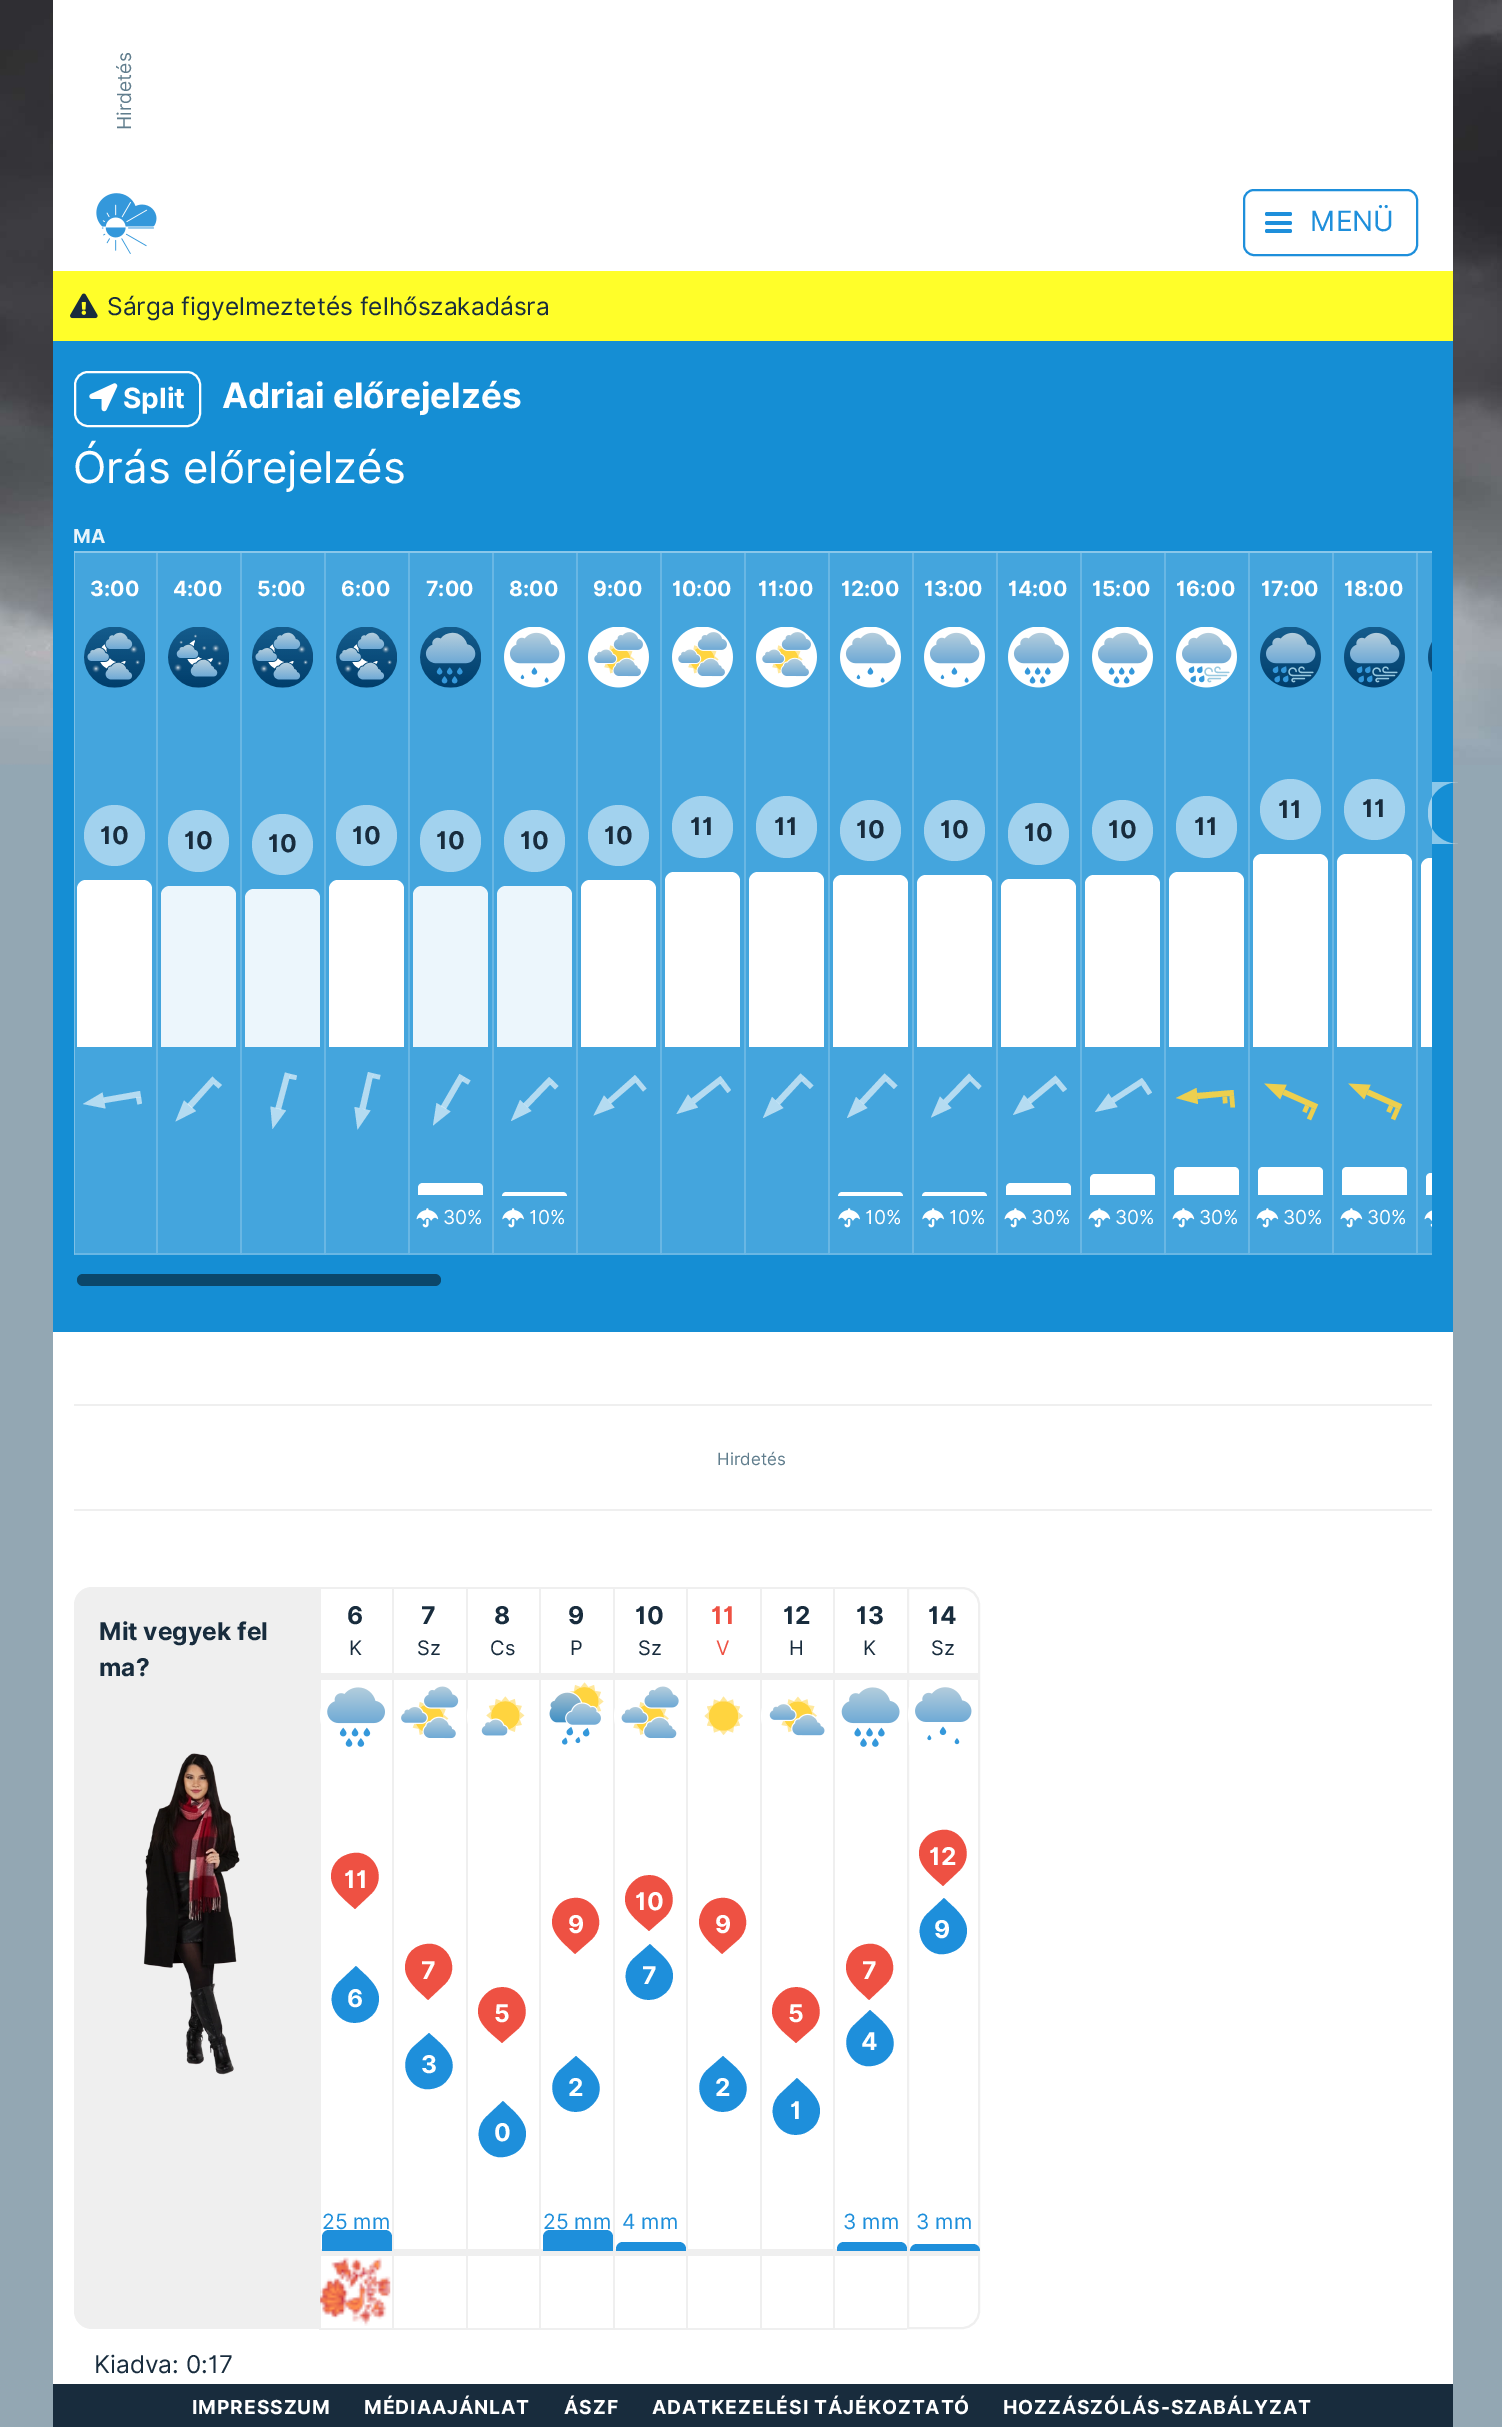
%!PS
<< /PageSize [1502 2427] /PageUsesTransparency true >> setpagedevice
/alpha { dup .setfillconstantalpha .setstrokeconstantalpha } def
/roundrect { 5 dict begin { /r /h /w /y /x } { exch def } forall
  x r add y moveto x w add y 2 copy h add r arct x w add y h add x 1 index r arct
  x y h add x y r arct x y 2 copy exch w add exch r arct closepath end } def
/picture { 5 dict begin { /h /w /y /x /name } { exch def } forall
  gsave x y translate w h scale
  w h 8 [w 0 0 h 0 0] name (r) file false 3 colorimage grestore end } def
0 .pushpdf14devicefilter
0 2427 translate 1 -1 scale
4 setmiterlimit
0.576 0.655 0.702 setrgbcolor
0 0 1502 2427 rectfill
(img1.rgb) 0 0 1502 765 picture
1 setgray
53 0 1400 175 rectfill
/Inter-Regular [19.25 0 0 -19.25 0 0] selectfont
0.376 0.49 0.553 setrgbcolor
gsave 131 130 translate -90 rotate 0 0 moveto (Hirdetés) show grestore
1 setgray
53 175 1400 96 rectfill
(img2.rgb) 96 193 61 61 picture
0.118 0.561 0.859 setrgbcolor
2 setlinewidth
1244 190 173 65 10 roundrect stroke
1265 212 27 4 2 roundrect fill
1265 221 27 4 2 roundrect fill
1265 229 27 4 2 roundrect fill
/Inter-Regular [28 0 0 -28 0 0] selectfont
1310 231 moveto (MENÜ) show
1 0.996 0.161 setrgbcolor
53 271 1400 70 rectfill
(img3.rgb) 70 293 28 26 picture
/Inter-Regular [24.5 0 0 -24.5 0 0] selectfont
0.094 0.173 0.239 setrgbcolor
107 315 moveto (Sárga figyelmeztetés felhőszakadásra) show
0.082 0.557 0.831 setrgbcolor
53 341 1400 991 rectfill
1 setgray
75 372 125 54 13 roundrect stroke
(img4.rgb) 89 383 29 29 picture
/Inter-Bold [28 0 0 -28 0 0] selectfont
123 408 moveto (Split) show
/Inter-Bold [35 0 0 -35 0 0] selectfont
222 408 moveto (Adriai előrejelzés) show
/Inter-Regular [43.75 0 0 -43.75 0 0] selectfont
73 483 moveto (Órás előrejelzés) show
gsave
74 522 1358 768 rectclip
/Inter-Bold [19.25 0 0 -19.25 0 0] selectfont
0.91 0.957 0.984 setrgbcolor
73 543 moveto (MA) show
grestore
0.541 0.78 0.918 setrgbcolor
74 551 1358 2 rectfill
0.267 0.647 0.867 setrgbcolor
74 553 1344 702 rectfill
0.412 0.718 0.894 setrgbcolor
newpath 158 553 moveto 158 1255 lineto 156 1253 lineto 156 553 lineto closepath fill
0.2 alpha
1 setgray
newpath 158 1255 moveto 74 1255 lineto 75 1253 lineto 156 1253 lineto closepath fill
0.3 alpha
newpath 74 1255 moveto 74 553 lineto 75 553 lineto 75 1253 lineto closepath fill
/Inter-Bold [21 0 0 -21 0 0] selectfont
1 alpha
90 596 moveto (3:00) show
(img5.rgb) 84 627 61 61 picture
0.635 0.824 0.933 setrgbcolor
newpath 114.5 835.5 30.5 0 360 arc closepath fill
/Inter-Bold [24.5 0 0 -24.5 0 0] selectfont
0.094 0.173 0.239 setrgbcolor
100 844 moveto (10) show
1 setgray
newpath 86 880 moveto 143 880 lineto 148 880 152 884 152 889 curveto 152 1047 lineto 77 1047 lineto 77 889 lineto 77 884 81 880 86 880 curveto closepath fill
0.706 0.859 0.945 setrgbcolor
newpath 141 1097 moveto 104.5 1103 lineto 103.5 1097.5 lineto 140 1091 lineto closepath fill
0.6 alpha
1 setgray
newpath 137.5 1104.5 moveto 136 1097.5 lineto 141 1097 lineto 142 1103.5 lineto closepath 83 1104 moveto 105.5 1108.5 lineto 102.5 1092.5 lineto closepath fill
1 alpha
0.412 0.718 0.894 setrgbcolor
newpath 242 553 moveto 242 1255 lineto 240 1253 lineto 240 553 lineto closepath fill
0.2 alpha
1 setgray
newpath 242 1255 moveto 158 1255 lineto 158 1253 lineto 240 1253 lineto closepath fill
/Inter-Bold [21 0 0 -21 0 0] selectfont
1 alpha
173 596 moveto (4:00) show
(img6.rgb) 168 627 61 61 picture
0.635 0.824 0.933 setrgbcolor
168 810 61 62 30.5 roundrect fill
/Inter-Bold [24.5 0 0 -24.5 0 0] selectfont
0.094 0.173 0.239 setrgbcolor
184 849 moveto (10) show
0.925 0.965 0.988 setrgbcolor
newpath 170 886 moveto 227 886 lineto 232 886 236 890 236 895 curveto 236 1047 lineto 161 1047 lineto 161 895 lineto 161 890 165 886 170 886 curveto closepath fill
0.706 0.859 0.945 setrgbcolor
newpath 216.5 1080.5 moveto 192 1108 lineto 187.5 1104 lineto 212.5 1076.5 lineto closepath fill
0.6 alpha
1 setgray
newpath 218.5 1088.5 moveto 213.5 1084 lineto 216.5 1080.5 lineto 222 1085 lineto closepath 175.5 1121.5 moveto 196 1111 lineto 184 1100.5 lineto closepath fill
1 alpha
0.412 0.718 0.894 setrgbcolor
newpath 326 553 moveto 326 1255 lineto 324 1253 lineto 324 553 lineto closepath fill
0.2 alpha
1 setgray
newpath 326 1255 moveto 242 1255 lineto 242 1253 lineto 324 1253 lineto closepath fill
/Inter-Bold [21 0 0 -21 0 0] selectfont
1 alpha
257 596 moveto (5:00) show
(img7.rgb) 252 627 61 61 picture
0.635 0.824 0.933 setrgbcolor
newpath 282.5 844.5 30.5 0 360 arc closepath fill
/Inter-Bold [24.5 0 0 -24.5 0 0] selectfont
0.094 0.173 0.239 setrgbcolor
268 852 moveto (10) show
0.925 0.965 0.988 setrgbcolor
newpath 254 889 moveto 311 889 lineto 316 889 320 893 320 898 curveto 320 1047 lineto 245 1047 lineto 245 898 lineto 245 893 249 889 254 889 curveto closepath fill
0.706 0.859 0.945 setrgbcolor
newpath 290.5 1074 moveto 281 1109.5 lineto 275.5 1108 lineto 285 1072.5 lineto closepath fill
0.6 alpha
1 setgray
newpath 296 1080 moveto 289 1078.5 lineto 290.5 1074 lineto 297 1075.5 lineto closepath 272.5 1129 moveto 286 1110.5 lineto 270.5 1106.5 lineto closepath fill
1 alpha
0.412 0.718 0.894 setrgbcolor
newpath 410 553 moveto 410 1255 lineto 408 1253 lineto 408 553 lineto closepath fill
0.2 alpha
1 setgray
newpath 410 1255 moveto 326 1255 lineto 326 1253 lineto 408 1253 lineto closepath fill
/Inter-Bold [21 0 0 -21 0 0] selectfont
1 alpha
341 596 moveto (6:00) show
(img8.rgb) 336 627 61 61 picture
0.635 0.824 0.933 setrgbcolor
newpath 366.5 835.5 30.5 0 360 arc closepath fill
/Inter-Bold [24.5 0 0 -24.5 0 0] selectfont
0.094 0.173 0.239 setrgbcolor
352 844 moveto (10) show
1 setgray
newpath 338 880 moveto 395 880 lineto 400 880 404 884 404 889 curveto 404 1047 lineto 329 1047 lineto 329 889 lineto 329 884 333 880 338 880 curveto closepath fill
0.706 0.859 0.945 setrgbcolor
newpath 373.5 1073.5 moveto 365.5 1109.5 lineto 359.5 1108 lineto 368 1072 lineto closepath fill
0.6 alpha
1 setgray
newpath 379.5 1079.5 moveto 372.5 1078 lineto 373.5 1073.5 lineto 380.5 1075 lineto closepath 357.5 1129.5 moveto 370.5 1110.5 lineto 354.5 1107 lineto closepath fill
1 alpha
0.412 0.718 0.894 setrgbcolor
newpath 494 553 moveto 494 1255 lineto 492 1253 lineto 492 553 lineto closepath fill
0.2 alpha
1 setgray
newpath 494 1255 moveto 410 1255 lineto 410 1253 lineto 492 1253 lineto closepath fill
/Inter-Bold [21 0 0 -21 0 0] selectfont
1 alpha
426 596 moveto (7:00) show
(img9.rgb) 420 627 61 61 picture
0.635 0.824 0.933 setrgbcolor
420 810 61 62 30.5 roundrect fill
/Inter-Bold [24.5 0 0 -24.5 0 0] selectfont
0.094 0.173 0.239 setrgbcolor
436 849 moveto (10) show
0.925 0.965 0.988 setrgbcolor
newpath 422 886 moveto 479 886 lineto 484 886 488 890 488 895 curveto 488 1047 lineto 413 1047 lineto 413 895 lineto 413 890 417 886 422 886 curveto closepath fill
0.706 0.859 0.945 setrgbcolor
newpath 464.5 1077 moveto 446 1109 lineto 441 1106 lineto 459.5 1074 lineto closepath fill
0.6 alpha
1 setgray
newpath 468 1084.5 moveto 462 1081 lineto 464.5 1077 lineto 470.5 1080.5 lineto closepath 433 1125.5 moveto 450.5 1111.5 lineto 436.5 1103 lineto closepath fill
1 alpha
newpath 423 1183 moveto 478 1183 lineto 481 1183 483 1185 483 1188 curveto 483 1195 lineto 418 1195 lineto 418 1188 lineto 418 1185 420 1183 423 1183 curveto closepath fill
(img10.rgb) 416 1208 23 20 picture
/Inter-Regular [19.25 0 0 -19.25 0 0] selectfont
443 1224 moveto (30%) show
0.412 0.718 0.894 setrgbcolor
newpath 578 553 moveto 578 1255 lineto 576 1253 lineto 576 553 lineto closepath fill
0.2 alpha
1 setgray
newpath 578 1255 moveto 494 1255 lineto 494 1253 lineto 576 1253 lineto closepath fill
/Inter-Bold [21 0 0 -21 0 0] selectfont
1 alpha
509 596 moveto (8:00) show
(img11.rgb) 504 627 61 61 picture
0.635 0.824 0.933 setrgbcolor
504 810 61 62 30.5 roundrect fill
/Inter-Bold [24.5 0 0 -24.5 0 0] selectfont
0.094 0.173 0.239 setrgbcolor
520 849 moveto (10) show
0.925 0.965 0.988 setrgbcolor
newpath 506 886 moveto 563 886 lineto 568 886 572 890 572 895 curveto 572 1047 lineto 497 1047 lineto 497 895 lineto 497 890 501 886 506 886 curveto closepath fill
0.706 0.859 0.945 setrgbcolor
newpath 553.5 1081 moveto 528 1107.5 lineto 523.5 1103.5 lineto 549 1077 lineto closepath fill
0.6 alpha
1 setgray
newpath 555 1089.5 moveto 550 1084.5 lineto 553.5 1081 lineto 558.5 1086 lineto closepath 511 1121 moveto 531.5 1111 lineto 520 1100 lineto closepath fill
1 alpha
newpath 506 1192 moveto 563 1192 lineto 565 1192 567 1194 567 1196 curveto 502 1196 lineto 502 1194 504 1192 506 1192 curveto closepath fill
(img12.rgb) 502 1208 22 20 picture
/Inter-Regular [19.25 0 0 -19.25 0 0] selectfont
529 1224 moveto (10%) show
0.412 0.718 0.894 setrgbcolor
newpath 662 553 moveto 662 1255 lineto 660 1253 lineto 660 553 lineto closepath fill
0.2 alpha
1 setgray
newpath 662 1255 moveto 578 1255 lineto 578 1253 lineto 660 1253 lineto closepath fill
/Inter-Bold [21 0 0 -21 0 0] selectfont
1 alpha
593 596 moveto (9:00) show
(img13.rgb) 588 627 61 61 picture
0.635 0.824 0.933 setrgbcolor
newpath 618.5 835.5 30.5 0 360 arc closepath fill
/Inter-Bold [24.5 0 0 -24.5 0 0] selectfont
0.094 0.173 0.239 setrgbcolor
604 844 moveto (10) show
1 setgray
newpath 590 880 moveto 647 880 lineto 652 880 656 884 656 889 curveto 656 1047 lineto 581 1047 lineto 581 889 lineto 581 884 585 880 590 880 curveto closepath fill
0.706 0.859 0.945 setrgbcolor
newpath 639 1079.5 moveto 611 1103.5 lineto 607.5 1099.5 lineto 635 1075 lineto closepath fill
0.6 alpha
1 setgray
newpath 643 1091.5 moveto 635.5 1082.5 lineto 639 1079.5 lineto 646.5 1088.5 lineto closepath 593.5 1115.5 moveto 614.5 1107.5 lineto 604 1095.5 lineto closepath fill
1 alpha
0.412 0.718 0.894 setrgbcolor
newpath 746 553 moveto 746 1255 lineto 744 1253 lineto 744 553 lineto closepath fill
0.2 alpha
1 setgray
newpath 746 1255 moveto 662 1255 lineto 662 1253 lineto 744 1253 lineto closepath fill
/Inter-Bold [21 0 0 -21 0 0] selectfont
1 alpha
672 596 moveto (10:00) show
(img13.rgb) 672 627 61 61 picture
0.635 0.824 0.933 setrgbcolor
672 796 61 62 30.5 roundrect fill
/Inter-Bold [24.5 0 0 -24.5 0 0] selectfont
0.094 0.173 0.239 setrgbcolor
690 835 moveto (11) show
1 setgray
newpath 674 872 moveto 731 872 lineto 736 872 740 876 740 881 curveto 740 1047 lineto 665 1047 lineto 665 881 lineto 665 876 669 872 674 872 curveto closepath fill
0.706 0.859 0.945 setrgbcolor
newpath 724 1080.5 moveto 695 1103.5 lineto 691.5 1098.5 lineto 720.5 1076 lineto closepath fill
0.6 alpha
1 setgray
newpath 727.5 1093 moveto 720 1083.5 lineto 724 1080.5 lineto 731 1090 lineto closepath 676.5 1114 moveto 698 1107.5 lineto 688 1094.5 lineto closepath fill
1 alpha
0.412 0.718 0.894 setrgbcolor
newpath 830 553 moveto 830 1255 lineto 828 1253 lineto 828 553 lineto closepath fill
0.2 alpha
1 setgray
newpath 830 1255 moveto 746 1255 lineto 746 1253 lineto 828 1253 lineto closepath fill
/Inter-Bold [21 0 0 -21 0 0] selectfont
1 alpha
758 596 moveto (11:00) show
(img13.rgb) 756 627 61 61 picture
0.635 0.824 0.933 setrgbcolor
756 796 61 62 30.5 roundrect fill
/Inter-Bold [24.5 0 0 -24.5 0 0] selectfont
0.094 0.173 0.239 setrgbcolor
774 835 moveto (11) show
1 setgray
newpath 758 872 moveto 815 872 lineto 820 872 824 876 824 881 curveto 824 1047 lineto 749 1047 lineto 749 881 lineto 749 876 753 872 758 872 curveto closepath fill
0.706 0.859 0.945 setrgbcolor
newpath 805 1077.5 moveto 780 1104.5 lineto 775.5 1100.5 lineto 800.5 1073.5 lineto closepath fill
0.6 alpha
1 setgray
newpath 810 1089 moveto 801.5 1081 lineto 805 1077.5 lineto 813.5 1085.5 lineto closepath 763 1118 moveto 783.5 1108 lineto 772 1097 lineto closepath fill
1 alpha
0.412 0.718 0.894 setrgbcolor
newpath 914 553 moveto 914 1255 lineto 912 1253 lineto 912 553 lineto closepath fill
0.2 alpha
1 setgray
newpath 914 1255 moveto 830 1255 lineto 830 1253 lineto 912 1253 lineto closepath fill
/Inter-Bold [21 0 0 -21 0 0] selectfont
1 alpha
841 596 moveto (12:00) show
(img11.rgb) 840 627 61 61 picture
0.635 0.824 0.933 setrgbcolor
newpath 870.5 830.5 30.5 0 360 arc closepath fill
/Inter-Bold [24.5 0 0 -24.5 0 0] selectfont
0.094 0.173 0.239 setrgbcolor
856 838 moveto (10) show
1 setgray
newpath 842 875 moveto 899 875 lineto 904 875 908 879 908 884 curveto 908 1047 lineto 833 1047 lineto 833 884 lineto 833 879 837 875 842 875 curveto closepath fill
0.706 0.859 0.945 setrgbcolor
newpath 889 1077.5 moveto 864 1104.5 lineto 859.5 1100.5 lineto 884.5 1073.5 lineto closepath fill
0.6 alpha
1 setgray
newpath 894 1089 moveto 885.5 1081 lineto 889 1077.5 lineto 897.5 1085.5 lineto closepath 847 1118 moveto 867.5 1108 lineto 856 1097 lineto closepath fill
1 alpha
newpath 842 1192 moveto 899 1192 lineto 901 1192 903 1194 903 1196 curveto 838 1196 lineto 838 1194 840 1192 842 1192 curveto closepath fill
(img12.rgb) 838 1208 22 20 picture
/Inter-Regular [19.25 0 0 -19.25 0 0] selectfont
865 1224 moveto (10%) show
0.412 0.718 0.894 setrgbcolor
newpath 998 553 moveto 998 1255 lineto 996 1253 lineto 996 553 lineto closepath fill
0.2 alpha
1 setgray
newpath 998 1255 moveto 914 1255 lineto 914 1253 lineto 996 1253 lineto closepath fill
/Inter-Bold [21 0 0 -21 0 0] selectfont
1 alpha
924 596 moveto (13:00) show
(img11.rgb) 924 627 61 61 picture
0.635 0.824 0.933 setrgbcolor
newpath 954.5 830.5 30.5 0 360 arc closepath fill
/Inter-Bold [24.5 0 0 -24.5 0 0] selectfont
0.094 0.173 0.239 setrgbcolor
940 838 moveto (10) show
1 setgray
newpath 926 875 moveto 983 875 lineto 988 875 992 879 992 884 curveto 992 1047 lineto 917 1047 lineto 917 884 lineto 917 879 921 875 926 875 curveto closepath fill
0.706 0.859 0.945 setrgbcolor
newpath 973 1078 moveto 947.5 1104 lineto 943.5 1100 lineto 969 1073.5 lineto closepath fill
0.6 alpha
1 setgray
newpath 978.5 1089.5 moveto 970 1081 lineto 973 1078 lineto 981.5 1086 lineto closepath 931 1117.5 moveto 951.5 1108 lineto 940 1096.5 lineto closepath fill
1 alpha
newpath 926 1192 moveto 983 1192 lineto 985 1192 987 1194 987 1196 curveto 922 1196 lineto 922 1194 924 1192 926 1192 curveto closepath fill
(img12.rgb) 922 1208 22 20 picture
/Inter-Regular [19.25 0 0 -19.25 0 0] selectfont
949 1224 moveto (10%) show
0.412 0.718 0.894 setrgbcolor
newpath 1082 553 moveto 1082 1255 lineto 1080 1253 lineto 1080 553 lineto closepath fill
0.2 alpha
1 setgray
newpath 1082 1255 moveto 998 1255 lineto 998 1253 lineto 1080 1253 lineto closepath fill
/Inter-Bold [21 0 0 -21 0 0] selectfont
1 alpha
1008 596 moveto (14:00) show
(img14.rgb) 1008 627 61 61 picture
0.635 0.824 0.933 setrgbcolor
1008 803 61 62 30.5 roundrect fill
/Inter-Bold [24.5 0 0 -24.5 0 0] selectfont
0.094 0.173 0.239 setrgbcolor
1024 841 moveto (10) show
1 setgray
newpath 1010 879 moveto 1067 879 lineto 1072 879 1076 883 1076 888 curveto 1076 1047 lineto 1001 1047 lineto 1001 888 lineto 1001 883 1005 879 1010 879 curveto closepath fill
0.706 0.859 0.945 setrgbcolor
newpath 1059.5 1080 moveto 1031 1103.5 lineto 1027.5 1099 lineto 1055.5 1075.5 lineto closepath fill
0.6 alpha
1 setgray
newpath 1063 1092 moveto 1055.5 1083 lineto 1059.5 1080 lineto 1067 1089 lineto closepath 1013 1115 moveto 1034.5 1107.5 lineto 1024 1095 lineto closepath fill
1 alpha
newpath 1011 1183 moveto 1066 1183 lineto 1069 1183 1071 1185 1071 1188 curveto 1071 1195 lineto 1006 1195 lineto 1006 1188 lineto 1006 1185 1008 1183 1011 1183 curveto closepath fill
(img10.rgb) 1004 1208 23 20 picture
/Inter-Regular [19.25 0 0 -19.25 0 0] selectfont
1031 1224 moveto (30%) show
0.412 0.718 0.894 setrgbcolor
newpath 1166 553 moveto 1166 1255 lineto 1164 1253 lineto 1164 553 lineto closepath fill
0.2 alpha
1 setgray
newpath 1166 1255 moveto 1082 1255 lineto 1082 1253 lineto 1164 1253 lineto closepath fill
/Inter-Bold [21 0 0 -21 0 0] selectfont
1 alpha
1092 596 moveto (15:00) show
(img14.rgb) 1092 627 61 61 picture
0.635 0.824 0.933 setrgbcolor
newpath 1122.5 830.5 30.5 0 360 arc closepath fill
/Inter-Bold [24.5 0 0 -24.5 0 0] selectfont
0.094 0.173 0.239 setrgbcolor
1108 838 moveto (10) show
1 setgray
newpath 1094 875 moveto 1151 875 lineto 1156 875 1160 879 1160 884 curveto 1160 1047 lineto 1085 1047 lineto 1085 884 lineto 1085 879 1089 875 1094 875 curveto closepath fill
0.706 0.859 0.945 setrgbcolor
newpath 1145.5 1082.5 moveto 1114.5 1102.5 lineto 1111.5 1098 lineto 1142 1078 lineto closepath fill
0.6 alpha
1 setgray
newpath 1148 1095 moveto 1141.5 1085.5 lineto 1145.5 1082.5 lineto 1152 1092.5 lineto closepath 1095 1112 moveto 1117.5 1107 lineto 1108.5 1093.5 lineto closepath fill
1 alpha
newpath 1095 1174 moveto 1150 1174 lineto 1153 1174 1155 1176 1155 1179 curveto 1155 1195 lineto 1090 1195 lineto 1090 1179 lineto 1090 1176 1092 1174 1095 1174 curveto closepath fill
(img10.rgb) 1088 1208 23 20 picture
/Inter-Regular [19.25 0 0 -19.25 0 0] selectfont
1115 1224 moveto (30%) show
0.412 0.718 0.894 setrgbcolor
newpath 1250 553 moveto 1250 1255 lineto 1248 1253 lineto 1248 553 lineto closepath fill
0.2 alpha
1 setgray
newpath 1250 1255 moveto 1166 1255 lineto 1166 1253 lineto 1248 1253 lineto closepath fill
/Inter-Bold [21 0 0 -21 0 0] selectfont
1 alpha
1176 596 moveto (16:00) show
(img15.rgb) 1176 627 61 61 picture
0.635 0.824 0.933 setrgbcolor
1176 796 61 62 30.5 roundrect fill
/Inter-Bold [24.5 0 0 -24.5 0 0] selectfont
0.094 0.173 0.239 setrgbcolor
1194 835 moveto (11) show
1 setgray
newpath 1178 872 moveto 1235 872 lineto 1240 872 1244 876 1244 881 curveto 1244 1047 lineto 1169 1047 lineto 1169 881 lineto 1169 876 1173 872 1178 872 curveto closepath fill
0.925 0.812 0.31 setrgbcolor
newpath 1234 1095.5 moveto 1197.5 1099 lineto 1197 1093 lineto 1233.5 1090 lineto closepath fill
newpath 1230.5 1107.5 moveto 1229.5 1096 lineto 1234 1095.5 lineto 1235 1107.5 lineto closepath 1223 1103.5 moveto 1222.5 1096.5 lineto 1227 1096.5 lineto 1227.5 1103 lineto closepath 1176 1098 moveto 1198 1104 lineto 1196.5 1088 lineto closepath fill
1 setgray
newpath 1179 1167 moveto 1234 1167 lineto 1237 1167 1239 1169 1239 1172 curveto 1239 1195 lineto 1174 1195 lineto 1174 1172 lineto 1174 1169 1176 1167 1179 1167 curveto closepath fill
(img10.rgb) 1172 1208 23 20 picture
/Inter-Regular [19.25 0 0 -19.25 0 0] selectfont
1199 1224 moveto (30%) show
0.412 0.718 0.894 setrgbcolor
newpath 1334 553 moveto 1334 1255 lineto 1332 1253 lineto 1332 553 lineto closepath fill
0.2 alpha
1 setgray
newpath 1334 1255 moveto 1250 1255 lineto 1250 1253 lineto 1332 1253 lineto closepath fill
/Inter-Bold [21 0 0 -21 0 0] selectfont
1 alpha
1261 596 moveto (17:00) show
(img16.rgb) 1260 627 61 61 picture
0.635 0.824 0.933 setrgbcolor
newpath 1290.5 809.5 30.5 0 360 arc closepath fill
/Inter-Bold [24.5 0 0 -24.5 0 0] selectfont
0.094 0.173 0.239 setrgbcolor
1278 818 moveto (11) show
1 setgray
newpath 1262 854 moveto 1319 854 lineto 1324 854 1328 858 1328 863 curveto 1328 1047 lineto 1253 1047 lineto 1253 863 lineto 1253 858 1257 854 1262 854 curveto closepath fill
(img17.rgb) 1264 1083 55 38 picture
newpath 1263 1167 moveto 1318 1167 lineto 1321 1167 1323 1169 1323 1172 curveto 1323 1195 lineto 1258 1195 lineto 1258 1172 lineto 1258 1169 1260 1167 1263 1167 curveto closepath fill
(img10.rgb) 1256 1208 23 20 picture
/Inter-Regular [19.25 0 0 -19.25 0 0] selectfont
1283 1224 moveto (30%) show
0.412 0.718 0.894 setrgbcolor
newpath 1418 553 moveto 1418 1255 lineto 1416 1253 lineto 1416 553 lineto closepath fill
0.2 alpha
1 setgray
newpath 1418 1255 moveto 1334 1255 lineto 1334 1253 lineto 1416 1253 lineto closepath fill
/Inter-Bold [21 0 0 -21 0 0] selectfont
1 alpha
1344 596 moveto (18:00) show
(img16.rgb) 1344 627 61 61 picture
0.635 0.824 0.933 setrgbcolor
newpath 1374.5 809.5 30.5 0 360 arc closepath fill
/Inter-Bold [24.5 0 0 -24.5 0 0] selectfont
0.094 0.173 0.239 setrgbcolor
1362 817 moveto (11) show
1 setgray
newpath 1346 854 moveto 1403 854 lineto 1408 854 1412 858 1412 863 curveto 1412 1047 lineto 1337 1047 lineto 1337 863 lineto 1337 858 1341 854 1346 854 curveto closepath fill
(img17.rgb) 1348 1083 55 38 picture
newpath 1347 1167 moveto 1402 1167 lineto 1405 1167 1407 1169 1407 1172 curveto 1407 1195 lineto 1342 1195 lineto 1342 1172 lineto 1342 1169 1344 1167 1347 1167 curveto closepath fill
(img10.rgb) 1340 1208 23 20 picture
/Inter-Regular [19.25 0 0 -19.25 0 0] selectfont
1367 1224 moveto (30%) show
0.267 0.647 0.867 setrgbcolor
1418 553 14 700 rectfill
gsave
74 522 1358 768 rectclip
0.412 0.718 0.894 setrgbcolor
newpath 1502 1255 moveto 1418 1255 lineto 1418 1253 lineto 1500 1253 lineto closepath fill
grestore
(img18.rgb) 1428 642 4 30 picture
0.5 alpha
1 setgray
newpath 1458.5 782 moveto 1432 782 lineto 1432 844 lineto 1458.5 844 lineto 1441.5 844 1428 830.5 1428 813.5 curveto 1428 812.5 lineto 1428 795.5 1441.5 782 1458.5 782 curveto closepath fill
1 alpha
newpath 1430 858 moveto 1432 858 lineto 1432 1047 lineto 1421 1047 lineto 1421 867 lineto 1421 862 1425 858 1430 858 curveto closepath fill
newpath 1431 1173 moveto 1432 1173 lineto 1432 1195 lineto 1426 1195 lineto 1426 1178 lineto 1426 1175 1428 1173 1431 1173 curveto closepath fill
(img19.rgb) 1424 1210 8 17 picture
0.043 0.278 0.416 setrgbcolor
77 1274 364 12 6 roundrect fill
1 setgray
53 1332 1400 1052 rectfill
0.937 setgray
74 1404 1358 2 rectfill
/Inter-Regular [17 0 0 -17 0 0] selectfont
0.376 0.49 0.553 setrgbcolor
717 1465 moveto (Hirdetés) show
0.937 setgray
74 1509 1358 2 rectfill
newpath 92 1587 moveto 319 1587 lineto 319 2329 lineto 92 2329 lineto 82 2329 74 2321 74 2311 curveto 74 1605 lineto 74 1595 82 1587 92 1587 curveto closepath fill
/Inter-Bold [24.5 0 0 -24.5 0 0] selectfont
0.094 0.173 0.239 setrgbcolor
99 1640 moveto (Mit vegyek fel) show
99 1676 moveto (ma?) show
(img20.rgb) 143 1753 97 322 picture
0.937 setgray
319 1587 588 2 rectfill
319 2328 588 2 rectfill
319 1587 2 742 rectfill
320 1673 72 7 rectfill
0.094 0.173 0.239 setrgbcolor
347 1624 moveto (6) show
/Inter-Regular [20 0 0 -20 0 0] selectfont
349 1655 moveto (K) show
(img21.rgb) 320 1687 65 60 picture
0.933 0.318 0.263 setrgbcolor
newpath 371 1894 moveto 390 1876 371 1844 346 1855 curveto 340 1857 336 1861 333 1867 curveto 325 1886 343 1898 355 1909 curveto closepath fill
/Inter-Bold [24.5 0 0 -24.5 0 0] selectfont
1 setgray
344 1888 moveto (11) show
0.118 0.561 0.859 setrgbcolor
newpath 340 1981 moveto 320 1999 339 2031 364 2021 curveto 370 2018 375 2014 377 2008 curveto 385 1989 367 1977 356 1966 curveto closepath fill
1 setgray
347 2007 moveto (6) show
/Inter-Regular [21 0 0 -21 0 0] selectfont
0.118 0.561 0.859 setrgbcolor
322 2229 moveto (25 mm) show
0.937 setgray
320 2249 72 7 rectfill
0.118 0.561 0.859 setrgbcolor
newpath 329 2230 moveto 385 2230 lineto 389 2230 392 2233 392 2237 curveto 392 2251 lineto 322 2251 lineto 322 2237 lineto 322 2233 325 2230 329 2230 curveto closepath fill
(img22.rgb) 320 2257 71 69 picture
0.937 setgray
392 1587 2 742 rectfill
394 1673 72 7 rectfill
/Inter-Bold [24.5 0 0 -24.5 0 0] selectfont
0.094 0.173 0.239 setrgbcolor
421 1624 moveto (7) show
/Inter-Regular [20 0 0 -20 0 0] selectfont
417 1655 moveto (Sz) show
(img23.rgb) 401 1686 58 53 picture
0.933 0.318 0.263 setrgbcolor
newpath 444 1985 moveto 464 1967 444 1935 419 1946 curveto 414 1948 409 1952 407 1958 curveto 399 1977 417 1989 428 2000 curveto closepath fill
/Inter-Bold [24.5 0 0 -24.5 0 0] selectfont
1 setgray
421 1979 moveto (7) show
0.118 0.561 0.859 setrgbcolor
newpath 413 2047 moveto 394 2066 413 2098 438 2087 curveto 444 2085 448 2080 451 2074 curveto 458 2056 441 2044 429 2033 curveto closepath fill
1 setgray
421 2073 moveto (3) show
0.937 setgray
394 2249 72 7 rectfill
466 1587 2 742 rectfill
467 1673 72 7 rectfill
0.094 0.173 0.239 setrgbcolor
494 1624 moveto (8) show
/Inter-Regular [20 0 0 -20 0 0] selectfont
490 1655 moveto (Cs) show
(img24.rgb) 467 1696 58 40 picture
0.933 0.318 0.263 setrgbcolor
newpath 518 2029 moveto 537 2011 518 1979 493 1989 curveto 487 1992 483 1996 480 2002 curveto 472 2021 490 2032 502 2043 curveto closepath fill
/Inter-Bold [24.5 0 0 -24.5 0 0] selectfont
1 setgray
494 2022 moveto (5) show
0.118 0.561 0.859 setrgbcolor
newpath 487 2116 moveto 467 2134 486 2166 511 2155 curveto 517 2153 522 2148 524 2143 curveto 532 2124 514 2112 503 2101 curveto closepath fill
1 setgray
494 2141 moveto (0) show
0.937 setgray
467 2249 72 7 rectfill
539 1587 2 742 rectfill
541 1673 72 7 rectfill
0.094 0.173 0.239 setrgbcolor
568 1624 moveto (9) show
/Inter-Regular [20 0 0 -20 0 0] selectfont
570 1655 moveto (P) show
(img25.rgb) 549 1682 55 63 picture
0.933 0.318 0.263 setrgbcolor
newpath 591 1940 moveto 611 1922 591 1889 566 1900 curveto 561 1902 556 1907 554 1913 curveto 546 1931 564 1943 575 1954 curveto closepath fill
/Inter-Bold [24.5 0 0 -24.5 0 0] selectfont
1 setgray
568 1933 moveto (9) show
0.118 0.561 0.859 setrgbcolor
newpath 560 2070 moveto 541 2088 560 2120 585 2110 curveto 591 2107 595 2103 598 2097 curveto 605 2078 588 2067 576 2056 curveto closepath fill
1 setgray
568 2096 moveto (2) show
/Inter-Regular [21 0 0 -21 0 0] selectfont
0.118 0.561 0.859 setrgbcolor
543 2229 moveto (25 mm) show
0.937 setgray
541 2249 72 7 rectfill
0.118 0.561 0.859 setrgbcolor
newpath 550 2230 moveto 606 2230 lineto 610 2230 613 2233 613 2237 curveto 613 2251 lineto 543 2251 lineto 543 2237 lineto 543 2233 546 2230 550 2230 curveto closepath fill
0.937 setgray
613 1587 2 742 rectfill
614 1673 72 7 rectfill
/Inter-Bold [24.5 0 0 -24.5 0 0] selectfont
0.094 0.173 0.239 setrgbcolor
635 1624 moveto (10) show
/Inter-Regular [20 0 0 -20 0 0] selectfont
638 1655 moveto (Sz) show
(img26.rgb) 614 1686 65 53 picture
0.933 0.318 0.263 setrgbcolor
newpath 665 1917 moveto 684 1899 665 1867 640 1877 curveto 634 1880 630 1884 627 1890 curveto 619 1909 637 1920 649 1931 curveto closepath fill
/Inter-Bold [24.5 0 0 -24.5 0 0] selectfont
1 setgray
635 1910 moveto (10) show
0.118 0.561 0.859 setrgbcolor
newpath 634 1958 moveto 614 1976 633 2008 658 1998 curveto 664 1995 669 1991 671 1985 curveto 679 1966 661 1955 650 1944 curveto closepath fill
1 setgray
642 1984 moveto (7) show
/Inter-Regular [21 0 0 -21 0 0] selectfont
0.118 0.561 0.859 setrgbcolor
622 2229 moveto (4 mm) show
0.937 setgray
614 2249 72 7 rectfill
0.118 0.561 0.859 setrgbcolor
newpath 623 2242 moveto 679 2242 lineto 683 2242 686 2245 686 2249 curveto 686 2251 lineto 616 2251 lineto 616 2249 lineto 616 2245 619 2242 623 2242 curveto closepath fill
0.937 setgray
686 1587 2 742 rectfill
688 1673 72 7 rectfill
/Inter-Bold [24.5 0 0 -24.5 0 0] selectfont
0.933 0.318 0.263 setrgbcolor
711 1624 moveto (11) show
/Inter-Regular [20 0 0 -20 0 0] selectfont
716 1655 moveto (V) show
1 0.91 0.616 setrgbcolor
newpath 738 1720 moveto 743 1716 lineto 738 1712 lineto 740 1706.5 lineto 734 1705.5 lineto 733 1699.5 lineto 727.5 1701.5 lineto 723.5 1696.5 lineto 720 1701.5 lineto 714 1699.5 lineto 713 1705.5 lineto 707 1706.5 lineto 709 1712 lineto 704.5 1716 lineto 709 1720 lineto 707 1725.5 lineto 713 1726.5 lineto 714 1732.5 lineto 720 1730.5 lineto 723.5 1735 lineto 727.5 1730.5 lineto 733 1732.5 lineto 734 1726.5 lineto 740 1725.5 lineto closepath fill
1 0.831 0.247 setrgbcolor
newpath 723.5 1716 14.5 0 360 arc closepath fill
0.933 0.318 0.263 setrgbcolor
newpath 738 1940 moveto 758 1922 738 1889 713 1900 curveto 708 1902 703 1907 701 1913 curveto 693 1931 711 1943 722 1954 curveto closepath fill
/Inter-Bold [24.5 0 0 -24.5 0 0] selectfont
1 setgray
715 1933 moveto (9) show
0.118 0.561 0.859 setrgbcolor
newpath 707 2070 moveto 688 2088 707 2120 732 2110 curveto 738 2107 742 2103 745 2097 curveto 752 2078 735 2067 723 2056 curveto closepath fill
1 setgray
715 2096 moveto (2) show
0.937 setgray
688 2249 72 7 rectfill
760 1587 2 742 rectfill
761 1673 72 7 rectfill
0.094 0.173 0.239 setrgbcolor
783 1624 moveto (12) show
/Inter-Regular [20 0 0 -20 0 0] selectfont
789 1655 moveto (H) show
(img27.rgb) 761 1696 64 40 picture
0.933 0.318 0.263 setrgbcolor
newpath 812 2029 moveto 831 2011 812 1979 787 1989 curveto 781 1992 777 1996 774 2002 curveto 766 2021 784 2032 796 2043 curveto closepath fill
/Inter-Bold [24.5 0 0 -24.5 0 0] selectfont
1 setgray
788 2022 moveto (5) show
0.118 0.561 0.859 setrgbcolor
newpath 781 2093 moveto 761 2111 780 2143 805 2133 curveto 811 2130 816 2126 818 2120 curveto 826 2101 808 2089 797 2078 curveto closepath fill
1 setgray
790 2119 moveto (1) show
0.937 setgray
761 2249 72 7 rectfill
833 1587 2 742 rectfill
835 1673 72 7 rectfill
0.094 0.173 0.239 setrgbcolor
856 1624 moveto (13) show
/Inter-Regular [20 0 0 -20 0 0] selectfont
863 1655 moveto (K) show
(img28.rgb) 841 1687 59 60 picture
0.933 0.318 0.263 setrgbcolor
newpath 885 1985 moveto 905 1967 885 1935 860 1946 curveto 855 1948 850 1952 848 1958 curveto 840 1977 858 1989 869 2000 curveto closepath fill
/Inter-Bold [24.5 0 0 -24.5 0 0] selectfont
1 setgray
862 1979 moveto (7) show
0.118 0.561 0.859 setrgbcolor
newpath 854 2025 moveto 835 2043 854 2075 879 2064 curveto 885 2062 889 2057 892 2052 curveto 899 2033 882 2021 870 2010 curveto closepath fill
1 setgray
861 2050 moveto (4) show
/Inter-Regular [21 0 0 -21 0 0] selectfont
0.118 0.561 0.859 setrgbcolor
843 2229 moveto (3 mm) show
0.937 setgray
835 2249 72 7 rectfill
0.118 0.561 0.859 setrgbcolor
newpath 844 2242 moveto 900 2242 lineto 904 2242 907 2245 907 2249 curveto 907 2251 lineto 837 2251 lineto 837 2249 lineto 837 2245 840 2242 844 2242 curveto closepath fill
0.937 setgray
newpath 908 1588 moveto 962 1588 lineto 971.5 1588 979 1595.5 979 1605 curveto 979 2311 lineto 979 2320.5 971.5 2328 962 2328 curveto 908 2328 lineto closepath stroke
908 1673 70 7 rectfill
/Inter-Bold [24.5 0 0 -24.5 0 0] selectfont
0.094 0.173 0.239 setrgbcolor
928 1624 moveto (14) show
/Inter-Regular [20 0 0 -20 0 0] selectfont
931 1655 moveto (Sz) show
(img29.rgb) 908 1687 64 58 picture
0.933 0.318 0.263 setrgbcolor
newpath 959 1871 moveto 978 1853 959 1821 934 1832 curveto 928 1834 924 1839 921 1844 curveto 913 1863 931 1875 943 1886 curveto closepath fill
/Inter-Bold [24.5 0 0 -24.5 0 0] selectfont
1 setgray
929 1865 moveto (12) show
0.118 0.561 0.859 setrgbcolor
newpath 928 1913 moveto 908 1931 927 1963 952 1952 curveto 958 1950 963 1945 965 1940 curveto 973 1921 955 1909 944 1898 curveto closepath fill
1 setgray
934 1938 moveto (9) show
/Inter-Regular [21 0 0 -21 0 0] selectfont
0.118 0.561 0.859 setrgbcolor
916 2229 moveto (3 mm) show
0.937 setgray
908 2249 70 7 rectfill
0.118 0.561 0.859 setrgbcolor
newpath 917 2244 moveto 973 2244 lineto 977 2244 980 2247 980 2251 curveto 910 2251 lineto 910 2247 913 2244 917 2244 curveto closepath fill
/Inter-Regular [24.5 0 0 -24.5 0 0] selectfont
0.094 0.173 0.239 setrgbcolor
94 2373 moveto (Kiadva: 0:17) show
53 2384 1400 43 rectfill
/Inter-Bold [19.25 0 0 -19.25 0 0] selectfont
1 setgray
192 2414 moveto 0.9 0 (IMPRESSZUM) ashow
364 2414 moveto 0.9 0 (MÉDIAAJÁNLAT) ashow
564 2414 moveto 0.9 0 (ÁSZF) ashow
652 2414 moveto 0.9 0 (ADATKEZELÉSI TÁJÉKOZTATÓ) ashow
1003 2414 moveto 0.9 0 (HOZZÁSZÓLÁS-SZABÁLYZAT) ashow
.poppdf14devicefilter showpage
